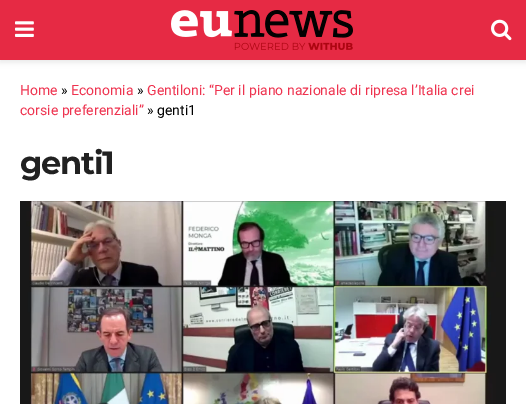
%!PS
<< /PageSize [526 404] /PageUsesTransparency true >> setpagedevice
/alpha { dup .setfillconstantalpha .setstrokeconstantalpha } def
/roundrect { 5 dict begin { /r /h /w /y /x } { exch def } forall
  x r add y moveto x w add y 2 copy h add r arct x w add y h add x 1 index r arct
  x y h add x y r arct x y 2 copy exch w add exch r arct closepath end } def
/shadow { 12 dict begin { /a /b /q /h /w /y /x } { exch def } forall gsave /was 0 def
  9 -2 -9 { dup b mul 4 div /e exch def 1 sub .425 mul 2.718 exch exp 1 add a .99 .min exch div /now exch def
    1 1 now sub 1 was sub div sub alpha /was now def
    w h .min e 2 mul add 0 gt { x e sub y e sub w e 2 mul add h e 2 mul add
      q e add b .6 mul add w h .min 2 div e add .min 0 .max roundrect fill } if } for grestore end } def
/picture { 5 dict begin { /h /w /y /x /name } { exch def } forall
  gsave x y translate w h scale
  w h 8 [w 0 0 h 0 0] name (r) file false 3 colorimage grestore end } def
0 .pushpdf14devicefilter
0 404 translate 1 -1 scale
4 setmiterlimit
1 setgray
0 0 526 404 rectfill
0 setgray
0 2 526 60 0 3 0.1 shadow
0.902 0.165 0.267 setrgbcolor
0 0 526 60 rectfill
(img1.rgb) 15 21 19 16 picture
(img2.rgb) 171 10 182 40 picture
(img3.rgb) 491 19 21 22 picture
/Roboto-Regular [14 0 0 -14 0 0] selectfont
0.933 0.2 0.31 setrgbcolor
20 95 moveto (Home) show
0 setgray
61 95 moveto (») show
0.933 0.2 0.31 setrgbcolor
71 95 moveto (Economia) show
0 setgray
137 95 moveto (») show
0.933 0.2 0.31 setrgbcolor
147 95 moveto (Gentiloni: “Per il piano nazionale di ripresa l’Italia crei) show
20 115 moveto (corsie preferenziali”) show
0 setgray
147 115 moveto (» genti1) show
/Montserrat-Bold [32 0 0 -32 0 0] selectfont
0.129 setgray
20 174 moveto -1.25 0 (genti1) ashow
(img4.rgb) 20 201 486 203 picture
.poppdf14devicefilter showpage
